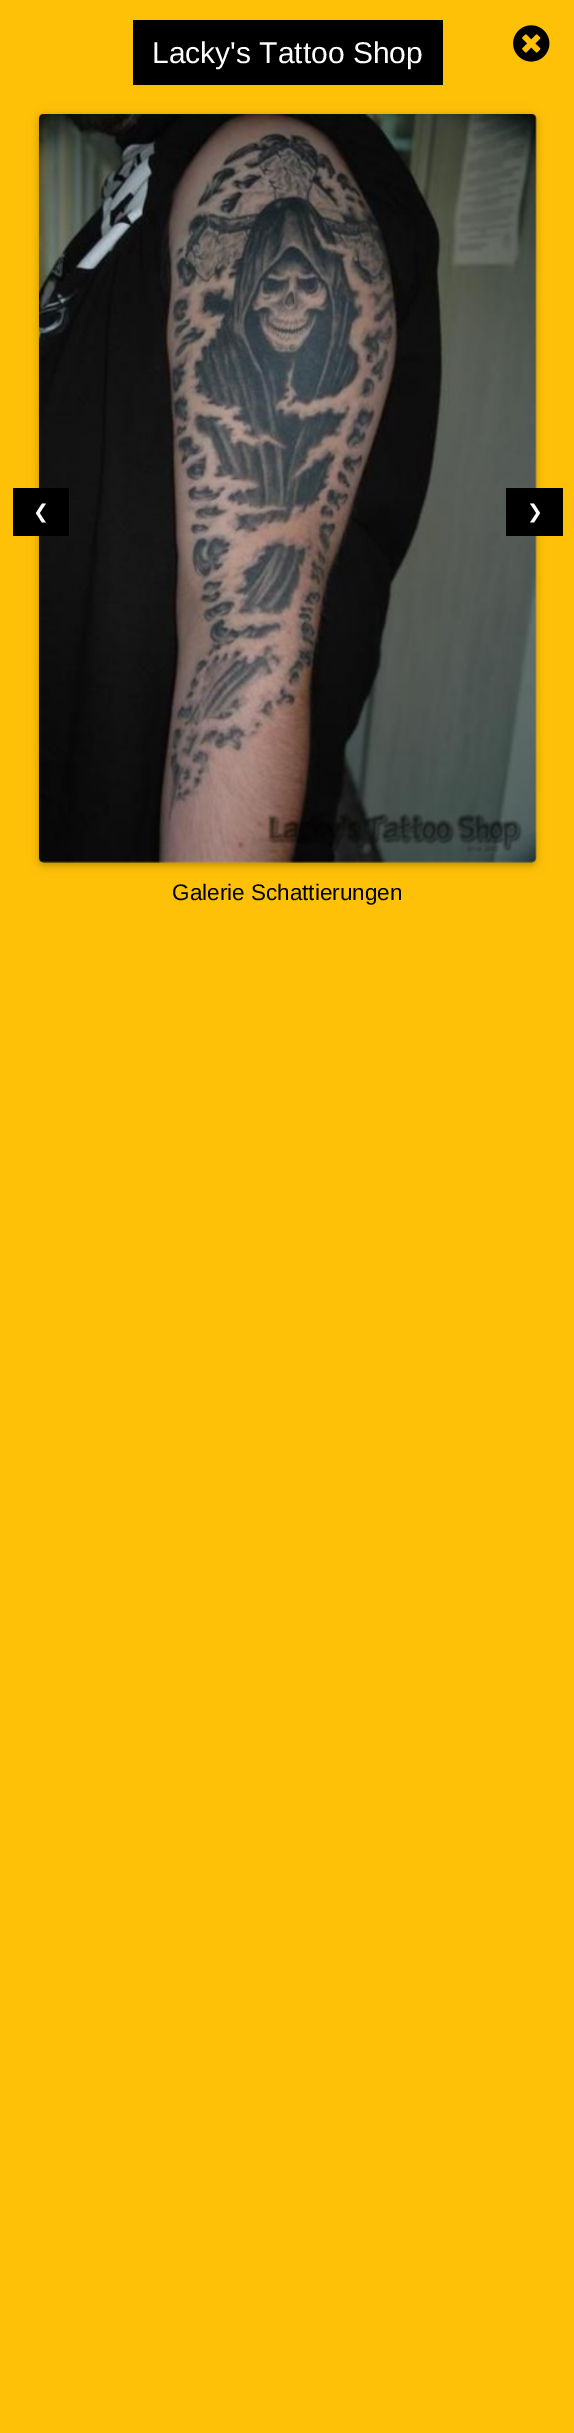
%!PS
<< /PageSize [574 2433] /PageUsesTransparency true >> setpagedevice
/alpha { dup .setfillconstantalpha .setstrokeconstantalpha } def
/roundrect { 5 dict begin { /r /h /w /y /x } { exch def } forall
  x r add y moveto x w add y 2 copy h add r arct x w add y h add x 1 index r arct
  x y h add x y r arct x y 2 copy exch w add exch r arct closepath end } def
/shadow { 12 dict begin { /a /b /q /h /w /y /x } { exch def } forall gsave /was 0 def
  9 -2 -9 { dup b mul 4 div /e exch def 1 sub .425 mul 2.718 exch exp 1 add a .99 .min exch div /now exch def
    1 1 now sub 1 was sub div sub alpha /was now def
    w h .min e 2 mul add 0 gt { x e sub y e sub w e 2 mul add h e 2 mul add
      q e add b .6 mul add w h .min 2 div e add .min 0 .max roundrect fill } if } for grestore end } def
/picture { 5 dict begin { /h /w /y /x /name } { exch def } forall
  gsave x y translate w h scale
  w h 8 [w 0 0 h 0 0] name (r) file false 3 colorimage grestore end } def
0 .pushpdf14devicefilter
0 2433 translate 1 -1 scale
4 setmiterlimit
1 0.757 0.027 setrgbcolor
0 0 574 2433 rectfill
0 setgray
133 20 310 65 rectfill
/LiberationSans-Regular [30 0 0 -30 0 0] selectfont
1 setgray
152 63 moveto (Lacky's Tattoo Shop) show
(img1.rgb) 513 25 37 37 picture
0 setgray
39 116 497 749 5 6 0.12 shadow
39 116 497 749 5 3 0.16 shadow
(img2.rgb) 39 114 498 749 picture
13 488 56 48 rectfill
/DejaVuSans-Regular [19 0 0 -19 0 0] selectfont
1 setgray
33 518 moveto (❮) show
0 setgray
506 488 57 48 rectfill
1 setgray
527 518 moveto (❯) show
/LiberationSans-Regular [22.5 0 0 -22.5 0 0] selectfont
0 setgray
172 900 moveto (Galerie Schattierungen) show
.poppdf14devicefilter showpage
